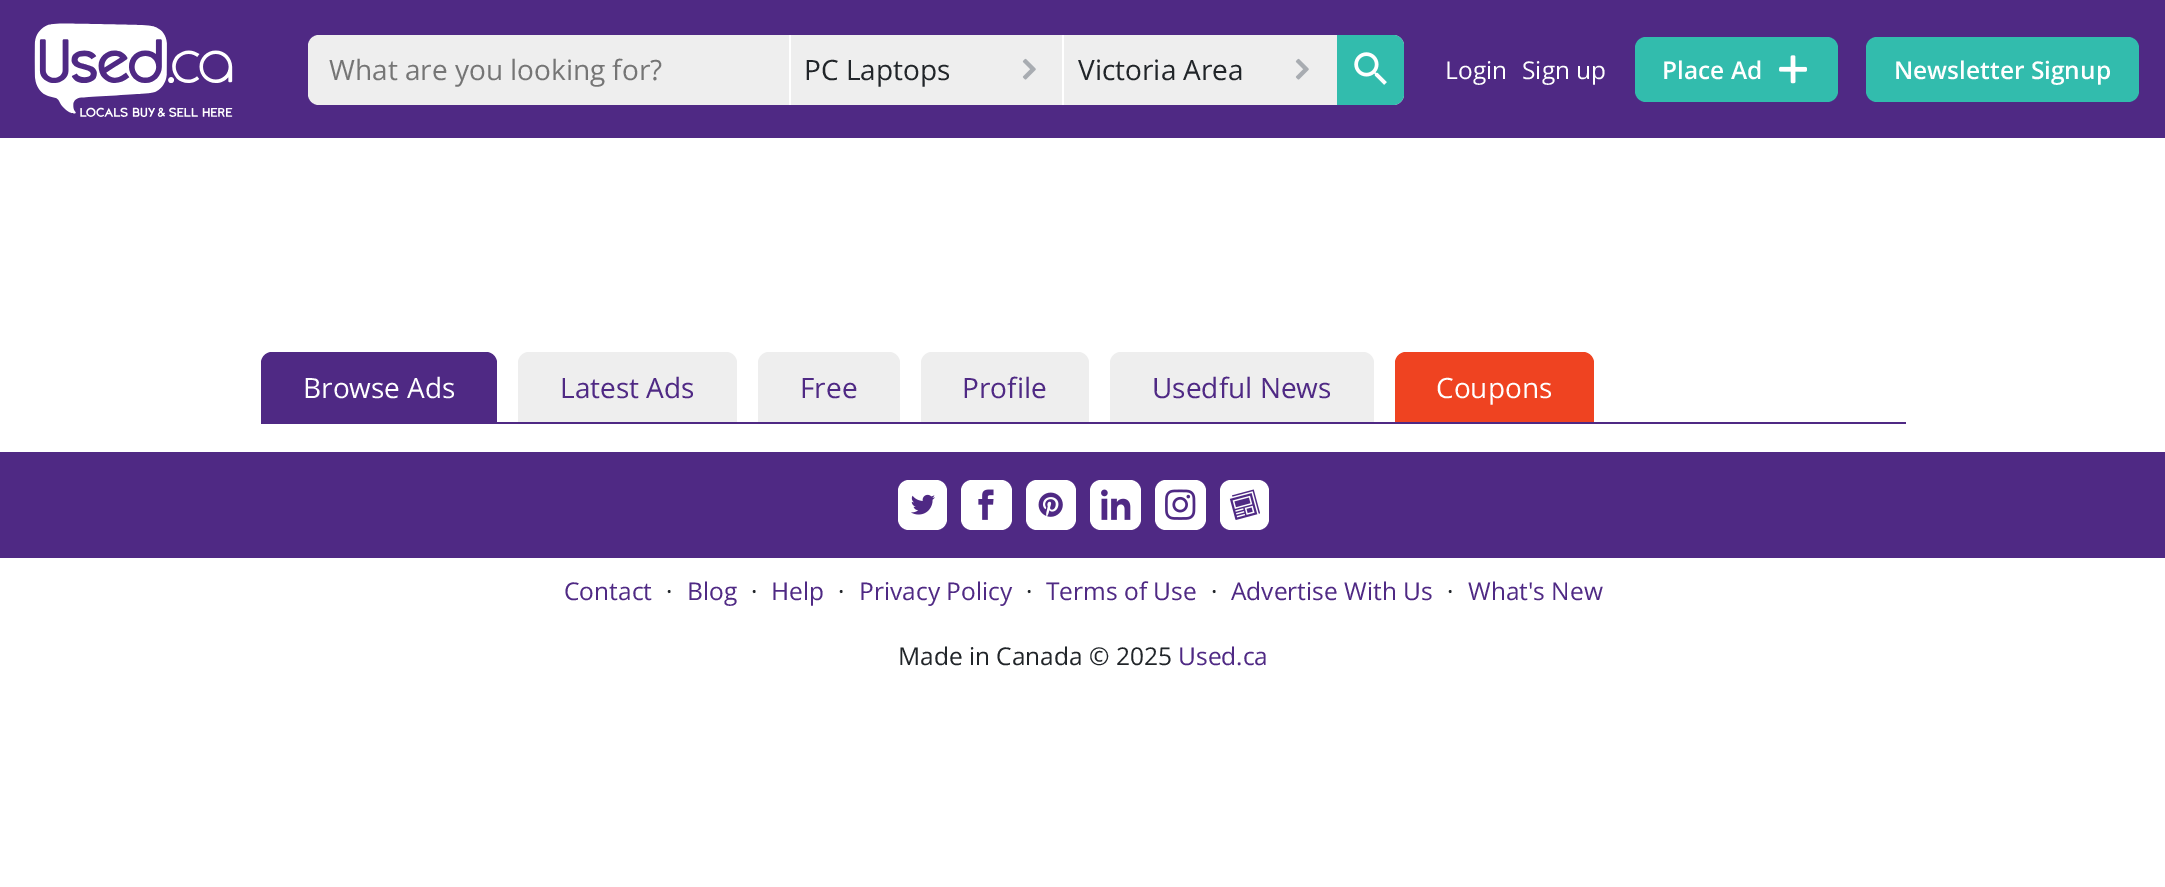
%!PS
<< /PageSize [2165 887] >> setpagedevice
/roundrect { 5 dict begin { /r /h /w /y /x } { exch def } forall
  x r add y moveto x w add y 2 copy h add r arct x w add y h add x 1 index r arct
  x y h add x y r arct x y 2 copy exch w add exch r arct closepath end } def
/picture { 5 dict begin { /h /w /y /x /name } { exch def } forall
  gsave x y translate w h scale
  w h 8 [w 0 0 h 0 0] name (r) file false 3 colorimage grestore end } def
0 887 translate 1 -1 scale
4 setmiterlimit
1 setgray
0 0 2165 887 rectfill
0.31 0.161 0.518 setrgbcolor
0 0 2165 138 rectfill
(img1.rgb) 34 23 199 94 picture
0.933 setgray
308 35 1096 70 11 roundrect fill
/OpenSans-Regular [28 0 0 -28 0 0] selectfont
0.459 setgray
329 80 moveto (What are you looking for?) show
1 setgray
789 35 2 70 rectfill
0.129 0.145 0.161 setrgbcolor
804 80 moveto (PC Laptops) show
(img2.rgb) 1022 58 14 22 picture
1 setgray
1062 35 2 70 rectfill
0.129 0.145 0.161 setrgbcolor
1078 80 moveto (Victoria Area) show
(img2.rgb) 1295 58 14 22 picture
0.196 0.737 0.678 setrgbcolor
newpath 1337 35 moveto 1393 35 lineto 1399 35 1404 40 1404 46 curveto 1404 94 lineto 1404 100 1399 105 1393 105 curveto 1337 105 lineto closepath fill
(img3.rgb) 1354 52 33 33 picture
/OpenSans-Regular [24.5 0 0 -24.5 0 0] selectfont
1 setgray
1445 79 moveto (Login) show
1522 79 moveto (Sign up) show
0.196 0.737 0.678 setrgbcolor
1635 37 203 65 11 roundrect fill
/OpenSans-SemiBold [24.5 0 0 -24.5 0 0] selectfont
1 setgray
1662 79 moveto (Place Ad) show
(img4.rgb) 1779 55 28 29 picture
0.196 0.737 0.678 setrgbcolor
1866 37 273 65 11 roundrect fill
1 setgray
1894 79 moveto (Newsletter Signup) show
0.31 0.161 0.518 setrgbcolor
261 422 1645 2 rectfill
newpath 272 352 moveto 486 352 lineto 492 352 497 357 497 363 curveto 497 422 lineto 261 422 lineto 261 363 lineto 261 357 266 352 272 352 curveto closepath fill
/OpenSans-Regular [28 0 0 -28 0 0] selectfont
1 setgray
303 398 moveto (Browse Ads) show
0.933 setgray
newpath 529 352 moveto 726 352 lineto 732 352 737 357 737 363 curveto 737 422 lineto 518 422 lineto 518 363 lineto 518 357 523 352 529 352 curveto closepath fill
0.31 0.161 0.518 setrgbcolor
560 398 moveto (Latest Ads) show
0.933 setgray
newpath 769 352 moveto 889 352 lineto 895 352 900 357 900 363 curveto 900 422 lineto 758 422 lineto 758 363 lineto 758 357 763 352 769 352 curveto closepath fill
0.31 0.161 0.518 setrgbcolor
800 398 moveto (Free) show
0.933 setgray
newpath 932 352 moveto 1078 352 lineto 1084 352 1089 357 1089 363 curveto 1089 422 lineto 921 422 lineto 921 363 lineto 921 357 926 352 932 352 curveto closepath fill
0.31 0.161 0.518 setrgbcolor
962 398 moveto (Profile) show
0.933 setgray
newpath 1121 352 moveto 1363 352 lineto 1369 352 1374 357 1374 363 curveto 1374 422 lineto 1110 422 lineto 1110 363 lineto 1110 357 1115 352 1121 352 curveto closepath fill
0.31 0.161 0.518 setrgbcolor
1152 398 moveto (Usedful News) show
0.937 0.263 0.129 setrgbcolor
newpath 1406 352 moveto 1583 352 lineto 1589 352 1594 357 1594 363 curveto 1594 422 lineto 1395 422 lineto 1395 363 lineto 1395 357 1400 352 1406 352 curveto closepath fill
1 setgray
1436 398 moveto (Coupons) show
0.31 0.161 0.518 setrgbcolor
0 452 2165 106 rectfill
1 setgray
898 480 49 50 11 roundrect fill
(img5.rgb) 911 494 24 21 picture
961 480 51 50 11 roundrect fill
(img6.rgb) 978 489 16 31 picture
1026 480 50 50 11 roundrect fill
(img7.rgb) 1038 492 25 25 picture
1090 480 51 50 11 roundrect fill
(img8.rgb) 1101 489 30 31 picture
1155 480 51 50 11 roundrect fill
(img9.rgb) 1165 489 31 31 picture
1220 480 49 50 11 roundrect fill
(img10.rgb) 1229 489 31 31 picture
/OpenSans-Regular [24.5 0 0 -24.5 0 0] selectfont
0.31 0.161 0.518 setrgbcolor
564 600 moveto (Contact) show
0.129 0.145 0.161 setrgbcolor
666 600 moveto (·) show
0.31 0.161 0.518 setrgbcolor
687 600 moveto (Blog) show
0.129 0.145 0.161 setrgbcolor
751 600 moveto (·) show
0.31 0.161 0.518 setrgbcolor
771 600 moveto (Help) show
0.129 0.145 0.161 setrgbcolor
838 600 moveto (·) show
0.31 0.161 0.518 setrgbcolor
859 600 moveto (Privacy Policy) show
0.129 0.145 0.161 setrgbcolor
1026 600 moveto (·) show
0.31 0.161 0.518 setrgbcolor
1046 600 moveto (Terms of Use) show
0.129 0.145 0.161 setrgbcolor
1211 600 moveto (·) show
0.31 0.161 0.518 setrgbcolor
1231 600 moveto (Advertise With Us) show
0.129 0.145 0.161 setrgbcolor
1447 600 moveto (·) show
0.31 0.161 0.518 setrgbcolor
1468 600 moveto (What's New) show
0.129 0.145 0.161 setrgbcolor
898 665 moveto (Made in Canada © 2025) show
0.31 0.161 0.518 setrgbcolor
1178 665 moveto (Used.ca) show
showpage
